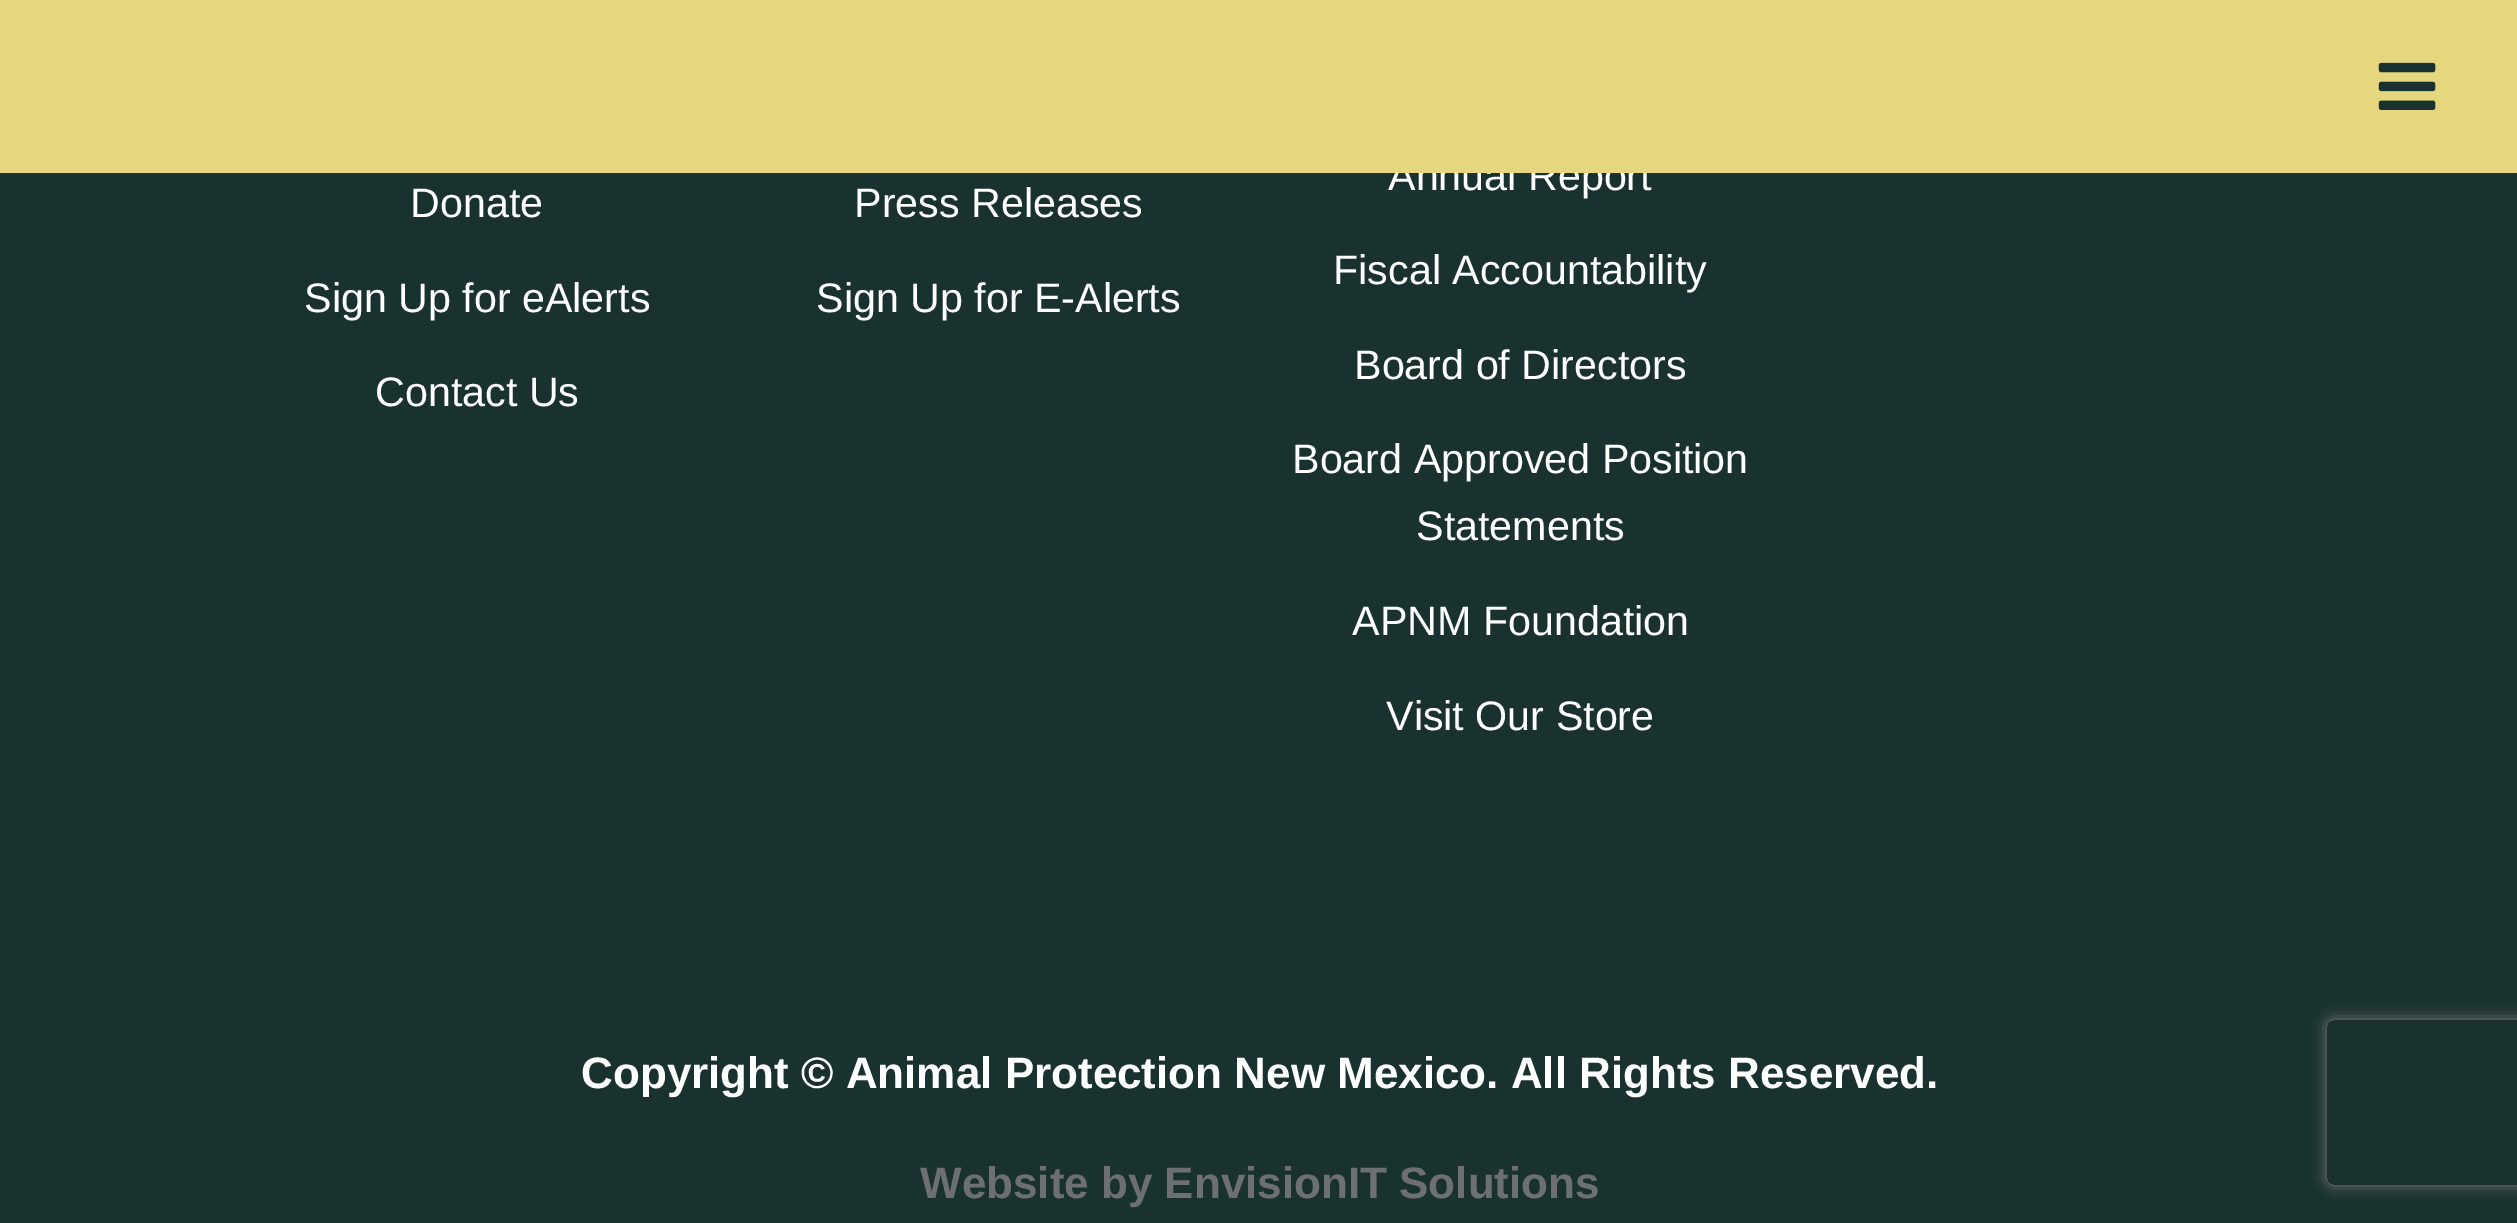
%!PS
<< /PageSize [2517 1223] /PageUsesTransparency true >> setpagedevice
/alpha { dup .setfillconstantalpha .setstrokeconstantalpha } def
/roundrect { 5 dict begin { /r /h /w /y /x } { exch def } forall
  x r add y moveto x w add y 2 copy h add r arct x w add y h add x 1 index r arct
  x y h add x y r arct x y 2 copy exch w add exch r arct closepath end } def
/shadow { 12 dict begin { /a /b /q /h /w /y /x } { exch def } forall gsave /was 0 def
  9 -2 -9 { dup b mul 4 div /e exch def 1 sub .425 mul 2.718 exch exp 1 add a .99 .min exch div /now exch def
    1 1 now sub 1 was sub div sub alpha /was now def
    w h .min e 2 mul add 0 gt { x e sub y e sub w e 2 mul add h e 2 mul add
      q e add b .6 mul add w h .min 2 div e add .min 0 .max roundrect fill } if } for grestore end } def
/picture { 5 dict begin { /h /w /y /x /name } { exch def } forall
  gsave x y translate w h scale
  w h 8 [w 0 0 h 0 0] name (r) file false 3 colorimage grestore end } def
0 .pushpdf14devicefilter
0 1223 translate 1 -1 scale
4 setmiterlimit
0.102 0.196 0.184 setrgbcolor
0 0 2517 1223 rectfill
/LiberationSans-Regular [41.25 0 0 -41.25 0 0] selectfont
1 setgray
1388 190 moveto (Annual Report) show
0.902 0.839 0.494 setrgbcolor
0 0 2517 173 rectfill
(img1.rgb) 2378 62 58 48 picture
1 setgray
410 217 moveto (Donate) show
304 312 moveto (Sign Up for eAlerts) show
375 406 moveto (Contact Us) show
854 217 moveto (Press Releases) show
816 312 moveto (Sign Up for E-Alerts) show
1333 284 moveto (Fiscal Accountability) show
1354 379 moveto (Board of Directors) show
1292 473 moveto (Board Approved Position) show
1416 540 moveto (Statements) show
1352 635 moveto (APNM Foundation) show
1386 730 moveto (Visit Our Store) show
/LiberationSans-Bold [44 0 0 -44 0 0] selectfont
581 1088 moveto (Copyright © Animal Protection New Mexico. All Rights Reserved.) show
0.431 0.435 0.447 setrgbcolor
920 1198 moveto (Website by EnvisionIT Solutions) show
gsave
newpath 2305 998 moveto 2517 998 lineto 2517 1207 lineto 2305 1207 lineto closepath 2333 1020 moveto 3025 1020 lineto 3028.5 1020 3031 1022.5 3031 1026 curveto 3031 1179 lineto 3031 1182.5 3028.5 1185 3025 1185 curveto 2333 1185 lineto 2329.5 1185 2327 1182.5 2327 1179 curveto 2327 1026 lineto 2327 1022.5 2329.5 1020 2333 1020 curveto closepath eoclip newpath
0.502 setgray
2327 1020 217 165 6 7 1 shadow
grestore
.poppdf14devicefilter showpage
